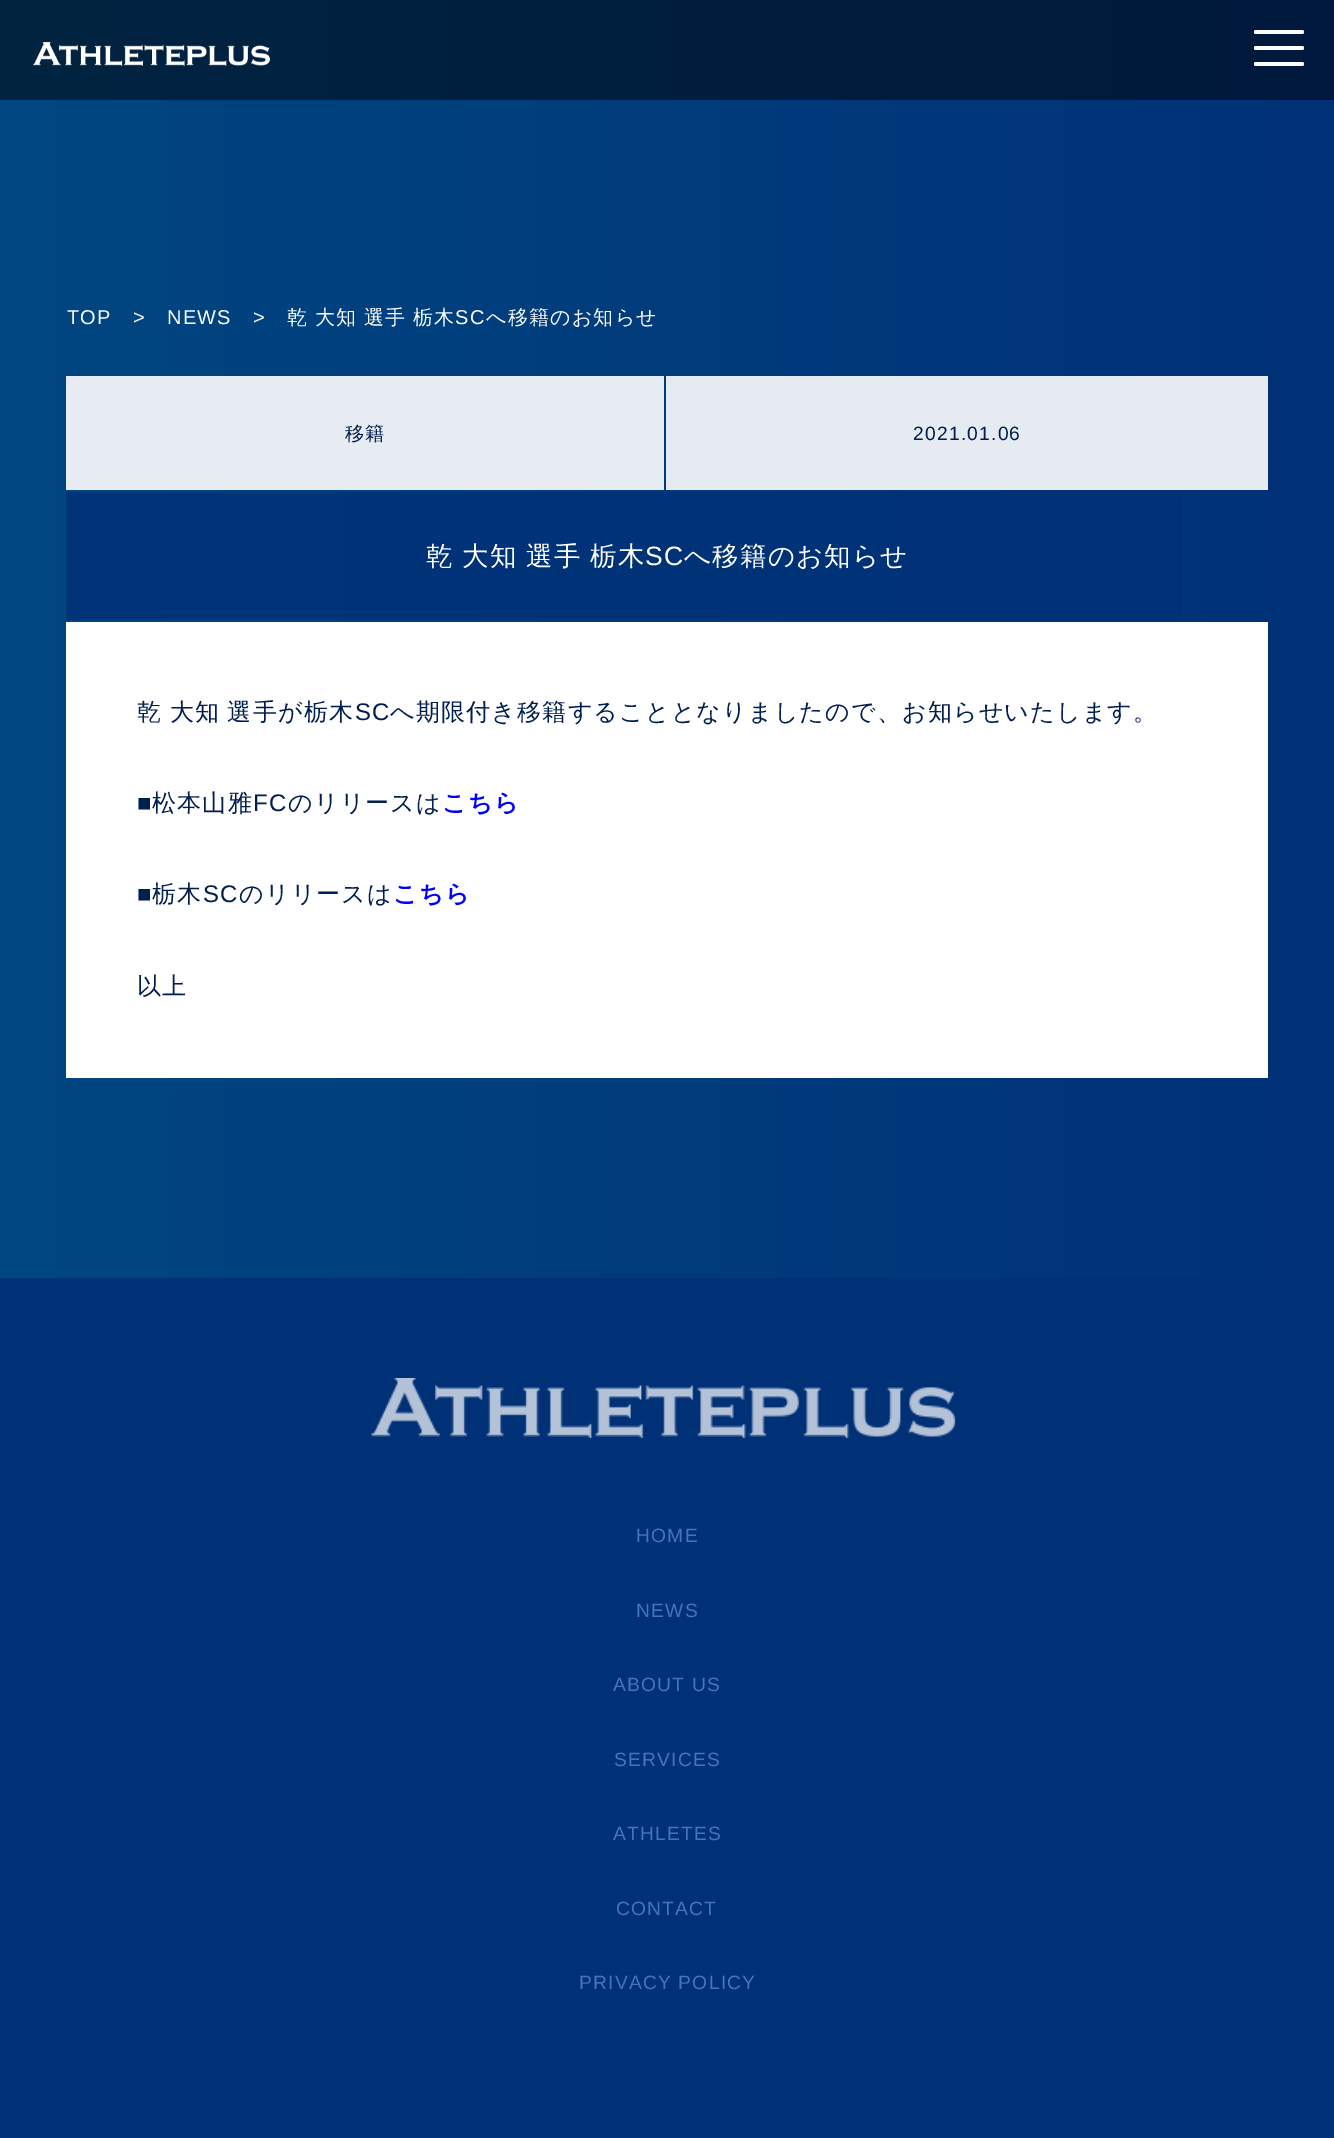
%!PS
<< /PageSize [1334 2138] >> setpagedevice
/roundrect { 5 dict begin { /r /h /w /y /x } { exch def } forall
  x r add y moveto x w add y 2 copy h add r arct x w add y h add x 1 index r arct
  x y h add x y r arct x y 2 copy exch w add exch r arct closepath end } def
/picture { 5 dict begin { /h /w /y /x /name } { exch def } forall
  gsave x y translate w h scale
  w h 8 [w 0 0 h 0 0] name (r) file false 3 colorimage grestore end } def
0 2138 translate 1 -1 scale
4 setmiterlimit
1 setgray
0 0 1334 2138 rectfill
gsave newpath 0 100 moveto 1334 100 lineto 1334 1278 lineto 0 1278 lineto closepath clip newpath
<< /ShadingType 2 /ColorSpace /DeviceRGB /Coords [0 1199 1334 1199] /Extend [true true] /Function << /FunctionType 2 /Domain [0 1] /C0 [0 0.278 0.506] /C1 [0 0.192 0.467] /N 1 >> >> shfill grestore
gsave newpath 0 0 moveto 1334 0 lineto 1334 100 lineto 0 100 lineto closepath clip newpath
<< /ShadingType 2 /ColorSpace /DeviceRGB /Coords [0 1199 1334 1199] /Extend [true true] /Function << /FunctionType 2 /Domain [0 1] /C0 [0 0.141 0.255] /C1 [0 0.098 0.235] /N 1 >> >> shfill grestore
gsave newpath 66 492 moveto 1182 492 lineto 1182 620 lineto 66 620 lineto closepath clip newpath
<< /ShadingType 2 /ColorSpace /DeviceRGB /Coords [0 1199 1334 1199] /Extend [true true] /Function << /FunctionType 2 /Domain [0 1] /C0 [0 0.2 0.471] /C1 [0 0.192 0.467] /N 1 >> >> shfill grestore
gsave newpath 666 376 moveto 1268 376 lineto 1268 490 lineto 666 490 lineto closepath clip newpath
<< /ShadingType 2 /ColorSpace /DeviceRGB /Coords [0 1199 1334 1199] /Extend [true true] /Function << /FunctionType 2 /Domain [0 1] /C0 [0.902 0.929 0.949] /C1 [0.902 0.918 0.945] /N 1 >> >> shfill grestore
gsave newpath 66 376 moveto 664 376 lineto 664 490 lineto 66 490 lineto closepath clip newpath
<< /ShadingType 2 /ColorSpace /DeviceRGB /Coords [0 1199 1334 1199] /Extend [true true] /Function << /FunctionType 2 /Domain [0 1] /C0 [0.902 0.929 0.949] /C1 [0.902 0.918 0.945] /N 1 >> >> shfill grestore
(img1.rgb) 33 42 237 24 picture
1254 30 50 4 2 roundrect fill
1254 46 50 4 2 roundrect fill
1254 62 50 4 2 roundrect fill
/LiberationSans-Regular [20 0 0 -20 0 0] selectfont
67 324 moveto 1.2 0 (TOP) ashow
133 324 moveto 1.2 0 (>) ashow
167 324 moveto 1.2 0 (NEWS) ashow
253 324 moveto 1.2 0 (>) ashow
/WenQuanYiZenHei-Medium [20 0 0 -20 0 0] selectfont
287 324 moveto -0.5 0 32 1.2 0 (乾 大知 選手 栃木) awidthshow
/LiberationSans-Regular [20 0 0 -20 0 0] selectfont
455 324 moveto 1.2 0 (SC) ashow
/WenQuanYiZenHei-Medium [20 0 0 -20 0 0] selectfont
486 324 moveto 1.2 0 (へ移籍のお知らせ) ashow
/WenQuanYiZenHei-Medium [19.25 0 0 -19.25 0 0] selectfont
0 0.118 0.314 setrgbcolor
345 440 moveto 1.2 0 (移籍) ashow
/LiberationSans-Regular [19.25 0 0 -19.25 0 0] selectfont
913 440 moveto 1.2 0 (2021.01.06) ashow
/WenQuanYiZenHei-Medium [26.5 0 0 -26.5 0 0] selectfont
1 setgray
426 565 moveto -0.5 0 32 1.2 0 (乾 大知 選手 栃木) awidthshow
/LiberationSans-Regular [26.5 0 0 -26.5 0 0] selectfont
645 565 moveto 1.2 0 (SC) ashow
/WenQuanYiZenHei-Medium [26.5 0 0 -26.5 0 0] selectfont
684 565 moveto 1.2 0 (へ移籍のお知らせ) ashow
66 622 1202 456 rectfill
/WenQuanYiZenHei-Medium [24 0 0 -24 0 0] selectfont
0 0.118 0.314 setrgbcolor
137 720 moveto -1 0 32 1.2 0 (乾 大知 選手が栃木) awidthshow
/LiberationSans-Regular [24 0 0 -24 0 0] selectfont
355 720 moveto 1.2 0 (SC) ashow
/WenQuanYiZenHei-Medium [24 0 0 -24 0 0] selectfont
390 720 moveto 1.2 0 (へ期限付き移籍することとなりましたので、お知らせいたします。) ashow
/LiberationSans-Regular [24 0 0 -24 0 0] selectfont
137 811 moveto 1.2 0 (■) ashow
/WenQuanYiZenHei-Medium [24 0 0 -24 0 0] selectfont
152 811 moveto 1.2 0 (松本山雅) ashow
/LiberationSans-Regular [24 0 0 -24 0 0] selectfont
253 811 moveto 1.2 0 (FC) ashow
/WenQuanYiZenHei-Medium [24 0 0 -24 0 0] selectfont
288 811 moveto 1.2 0 (のリリースは) ashow
/WenQuanYiZenHei-Bold [24 0 0 -24 0 0] selectfont
0 0 1 setrgbcolor
442 811 moveto 1.2 0 (こちら) ashow
/LiberationSans-Regular [24 0 0 -24 0 0] selectfont
0 0.118 0.314 setrgbcolor
137 902 moveto 1.2 0 (■) ashow
/WenQuanYiZenHei-Medium [24 0 0 -24 0 0] selectfont
152 902 moveto 1.2 0 (栃木) ashow
/LiberationSans-Regular [24 0 0 -24 0 0] selectfont
203 902 moveto 1.2 0 (SC) ashow
/WenQuanYiZenHei-Medium [24 0 0 -24 0 0] selectfont
239 902 moveto 1.2 0 (のリリースは) ashow
/WenQuanYiZenHei-Bold [24 0 0 -24 0 0] selectfont
0 0 1 setrgbcolor
393 902 moveto 1.2 0 (こちら) ashow
/WenQuanYiZenHei-Medium [24 0 0 -24 0 0] selectfont
0 0.118 0.314 setrgbcolor
137 994 moveto 1.2 0 (以上) ashow
0 0.192 0.467 setrgbcolor
0 1278 1334 860 rectfill
(img2.rgb) 371 1378 585 60 picture
/LiberationSans-Regular [19.25 0 0 -19.25 0 0] selectfont
0.267 0.459 0.733 setrgbcolor
636 1542 moveto 1.2 0 (HOME) ashow
636 1617 moveto 1.2 0 (NEWS) ashow
613 1691 moveto 1.2 0 (ABOUT US) ashow
614 1766 moveto 1.2 0 (SERVICES) ashow
613 1840 moveto 1.2 0 (ATHLETES) ashow
616 1915 moveto 1.2 0 (CONTACT) ashow
579 1989 moveto 1.2 0 (PRIVACY POLICY) ashow
showpage
